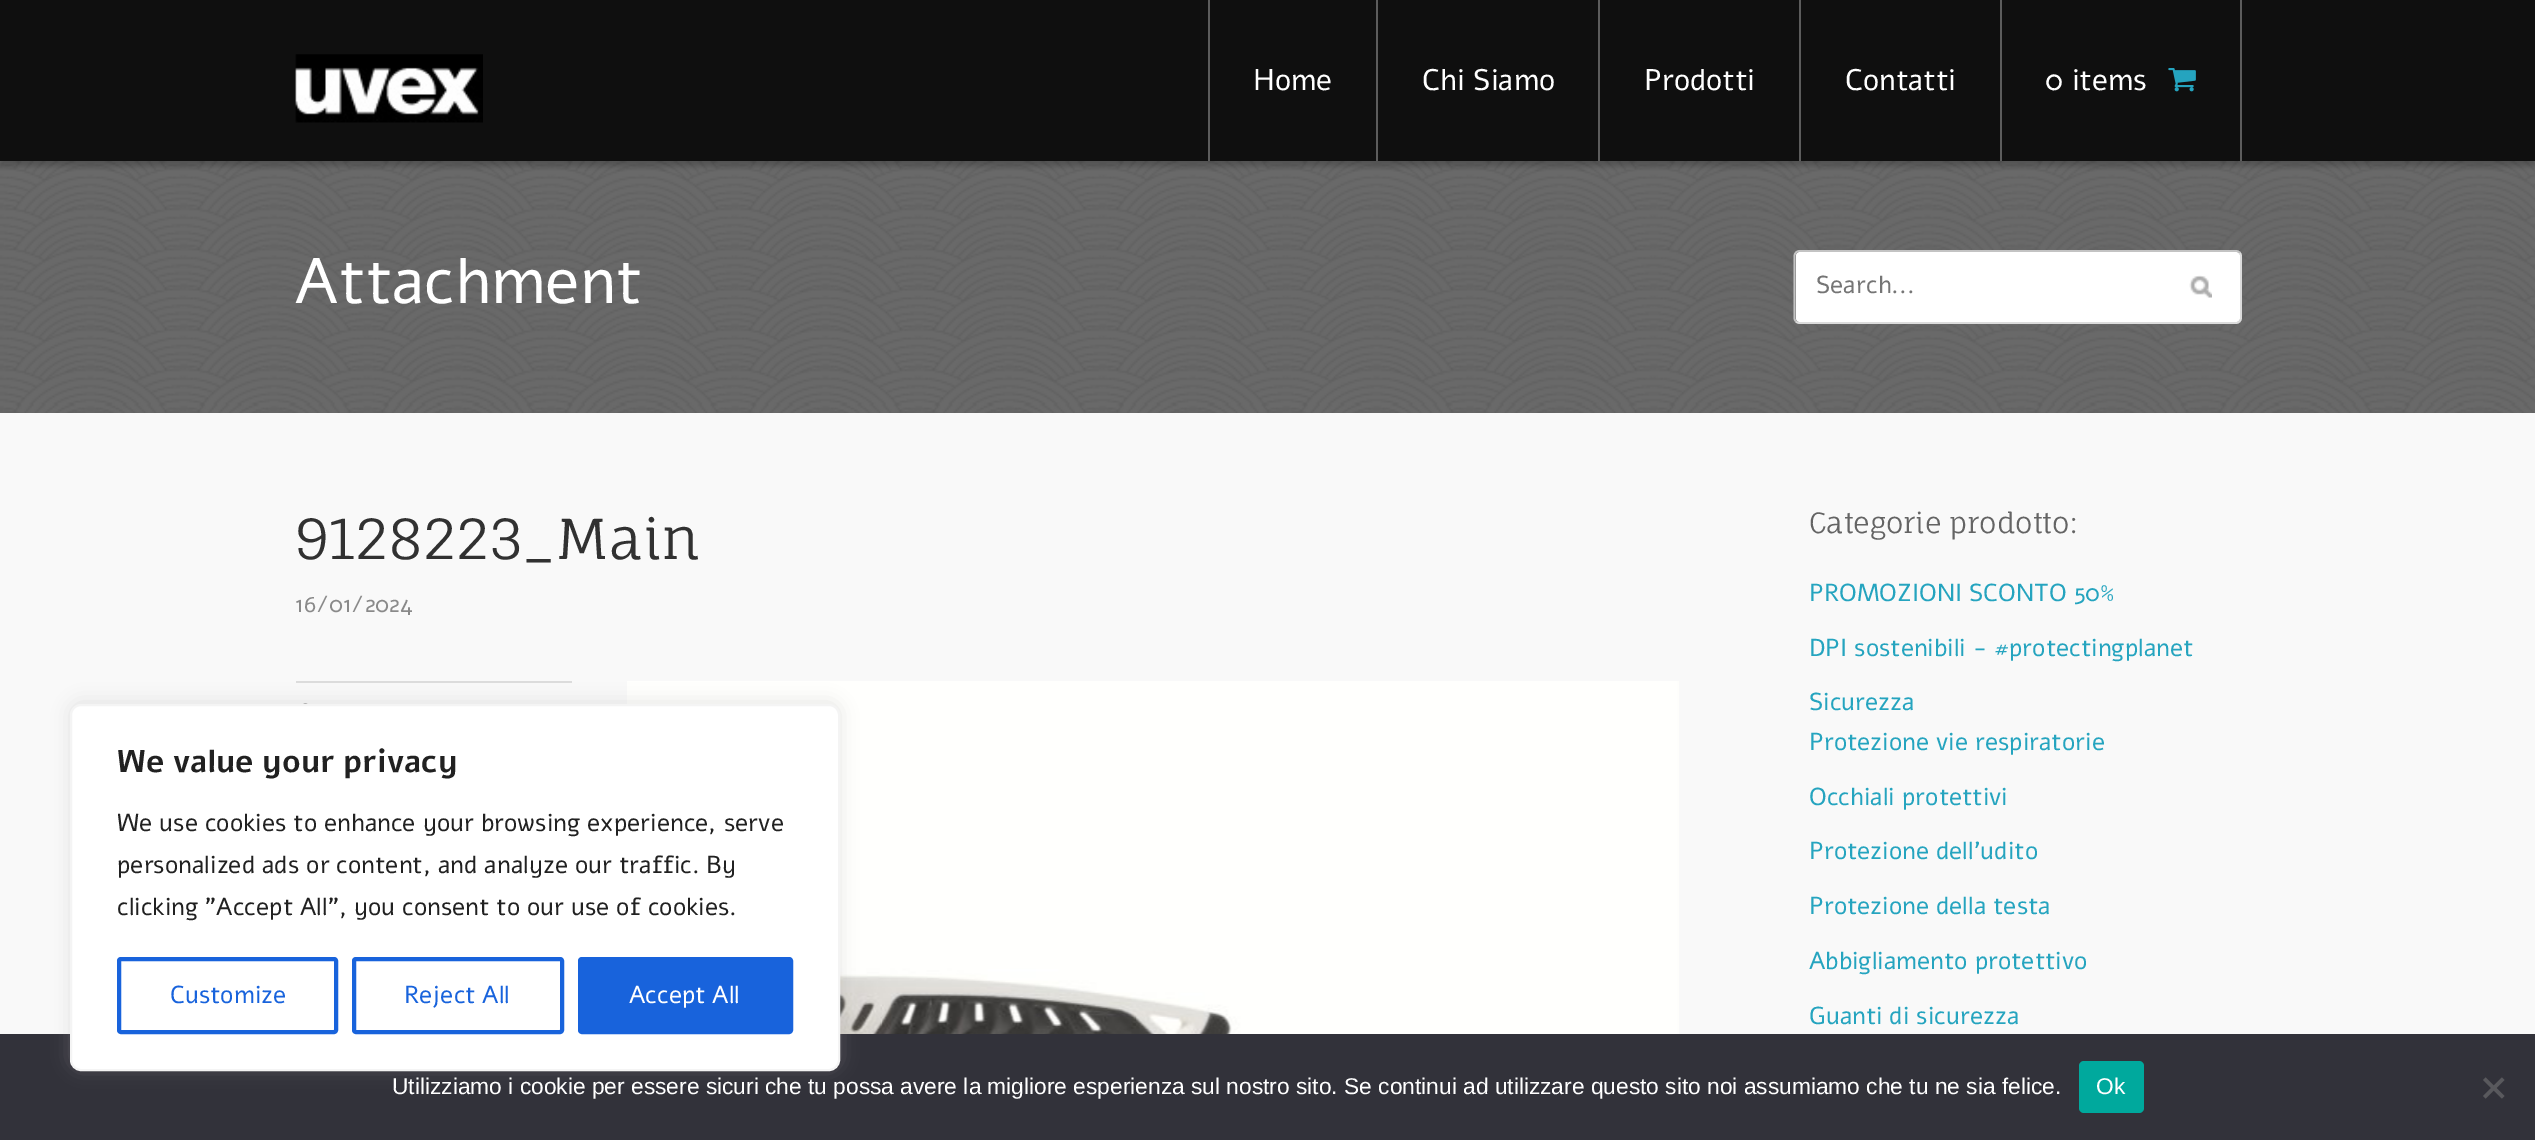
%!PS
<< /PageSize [2535 1140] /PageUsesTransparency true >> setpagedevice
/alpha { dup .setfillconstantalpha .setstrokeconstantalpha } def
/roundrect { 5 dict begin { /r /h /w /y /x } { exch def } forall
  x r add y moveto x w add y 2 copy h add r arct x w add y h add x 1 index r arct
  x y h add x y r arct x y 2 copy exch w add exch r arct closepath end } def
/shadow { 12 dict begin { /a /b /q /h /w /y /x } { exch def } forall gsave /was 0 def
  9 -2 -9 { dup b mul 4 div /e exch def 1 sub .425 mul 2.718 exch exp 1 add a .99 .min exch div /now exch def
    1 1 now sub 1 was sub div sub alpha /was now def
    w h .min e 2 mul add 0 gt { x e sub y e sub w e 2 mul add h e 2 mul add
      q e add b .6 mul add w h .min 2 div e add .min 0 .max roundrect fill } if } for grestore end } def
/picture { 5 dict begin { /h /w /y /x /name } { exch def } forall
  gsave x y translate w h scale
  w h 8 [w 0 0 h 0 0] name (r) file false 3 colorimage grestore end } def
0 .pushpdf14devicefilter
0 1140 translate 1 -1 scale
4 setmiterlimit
0.976 setgray
0 0 2535 1140 rectfill
0 setgray
0 161 2535 252 rectfill
(img3.rgb) 0 161 2535 252 picture
0 5 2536 161 0 2.5 0.2 shadow
0.059 setgray
0 0 2535 161 rectfill
(img1.rgb) 295 54 188 69 picture
0.361 setgray
1376 0 2 161 rectfill
1208 0 2 161 rectfill
/Alef-Regular [29.75 0 0 -29.75 0 0] selectfont
1 setgray
1253 90 moveto (Home) show
0.361 setgray
1598 0 2 161 rectfill
1 setgray
1422 90 moveto (Chi Siamo) show
0.361 setgray
1799 0 2 161 rectfill
1 setgray
1644 90 moveto (Prodotti) show
0.361 setgray
2000 0 2 161 rectfill
1 setgray
1845 90 moveto (Contatti) show
0.361 setgray
2240 0 2 161 rectfill
1 setgray
2045 90 moveto (0 items) show
(img2.rgb) 2168 68 28 24 picture
/Alef-Regular [64 0 0 -64 0 0] selectfont
295 303 moveto (Attachment) show
1796 252 444 70 4 roundrect fill
0.863 setgray
1.8 setlinewidth
newpath 2239.5 252.5 moveto 2240.5 253.5 2241 254.5 2241 256 curveto 2241 318 lineto 2241 319.5 2240.5 320.5 2239.5 321.5 curveto 2238.5 322.5 2237.5 323 2236 323 curveto 1799.5 323 lineto 1798 323 1797 322.5 1796 321.5 curveto stroke
0.765 setgray
newpath 1796 321.5 moveto 1795 320.5 1794.5 319.5 1794.5 318 curveto 1794.5 256 lineto 1794.5 254.5 1795 253.5 1796 252.5 curveto 1797 251.5 1798 251 1799.5 251 curveto 2236 251 lineto 2237.5 251 2238.5 251.5 2239.5 252.5 curveto stroke
/Alef-Regular [24.5 0 0 -24.5 0 0] selectfont
0.459 setgray
1816 293 moveto (Search...) show
(img4.rgb) 2189 275 23 23 picture
/FaunaOne-Regular [55 0 0 -55 0 0] selectfont
0.192 setgray
295 559 moveto (9128223_Main) show
/Alef-Regular [23.25 0 0 -23.25 0 0] selectfont
0.541 setgray
295 612 moveto (16/01/2024) show
0.863 setgray
296 681 276 2 rectfill
(img5.rgb) 303 703 5 1 picture
(img6.rgb) 627 681 1052 353 picture
/FaunaOne-Regular [28 0 0 -28 0 0] selectfont
0.392 setgray
1809 533 moveto (Categorie prodotto:) show
/Alef-Regular [24.5 0 0 -24.5 0 0] selectfont
0.145 0.643 0.749 setrgbcolor
1809 601 moveto (PROMOZIONI SCONTO 50%) show
1809 656 moveto (DPI sostenibili - #protectingplanet) show
1809 710 moveto (Sicurezza) show
1809 750 moveto (Protezione vie respiratorie) show
1809 805 moveto (Occhiali protettivi) show
1809 859 moveto (Protezione dell'udito) show
1809 914 moveto (Protezione della testa) show
1809 969 moveto (Abbigliamento protettivo) show
1809 1024 moveto (Guanti di sicurezza) show
0.196 0.196 0.227 setrgbcolor
0 1034 2535 106 rectfill
0.675 0.671 0.671 setrgbcolor
70 702 770 367 11 9 0.3 shadow
1 setgray
71 705 768 365 10 roundrect gsave fill grestore
0.957 setgray
2 setlinewidth
stroke
/Alef-Bold [31.5 0 0 -31.5 0 0] selectfont
0.129 setgray
117 772 moveto (We value your privacy) show
/Alef-Regular [24.5 0 0 -24.5 0 0] selectfont
117 831 moveto (We use cookies to enhance your browsing experience, serve) show
117 873 moveto (personalized ads or content, and analyze our traffic. By) show
117 915 moveto (clicking "Accept All", you consent to our use of cookies.) show
0.094 0.388 0.863 setrgbcolor
4 setlinewidth
119 959 217 73 2 roundrect stroke
170 1003 moveto (Customize) show
354 959 208 73 2 roundrect stroke
404 1003 moveto (Reject All) show
580 959 211 73 2 roundrect gsave fill grestore
stroke
1 setgray
629 1003 moveto (Accept All) show
/LiberationSans-Regular [22.75 0 0 -22.75 0 0] selectfont
392 1094 moveto (Utilizziamo i cookie per essere sicuri che tu possa avere la migliore esperienza sul nostro sito. Se continui ad utilizzare questo sito noi assumiamo che tu ne sia felice.) show
0 0.663 0.616 setrgbcolor
2079 1061 65 52 5 roundrect fill
1 setgray
2096 1094 moveto (Ok) show
0.349 0.349 0.365 setrgbcolor
newpath 2502 1077.5 moveto 2504.5 1080 lineto 2485.5 1098.5 lineto 2483 1096 lineto closepath fill
newpath 2483 1080 moveto 2485.5 1077.5 lineto 2504.5 1096 lineto 2502 1098.5 lineto closepath fill
.poppdf14devicefilter showpage
